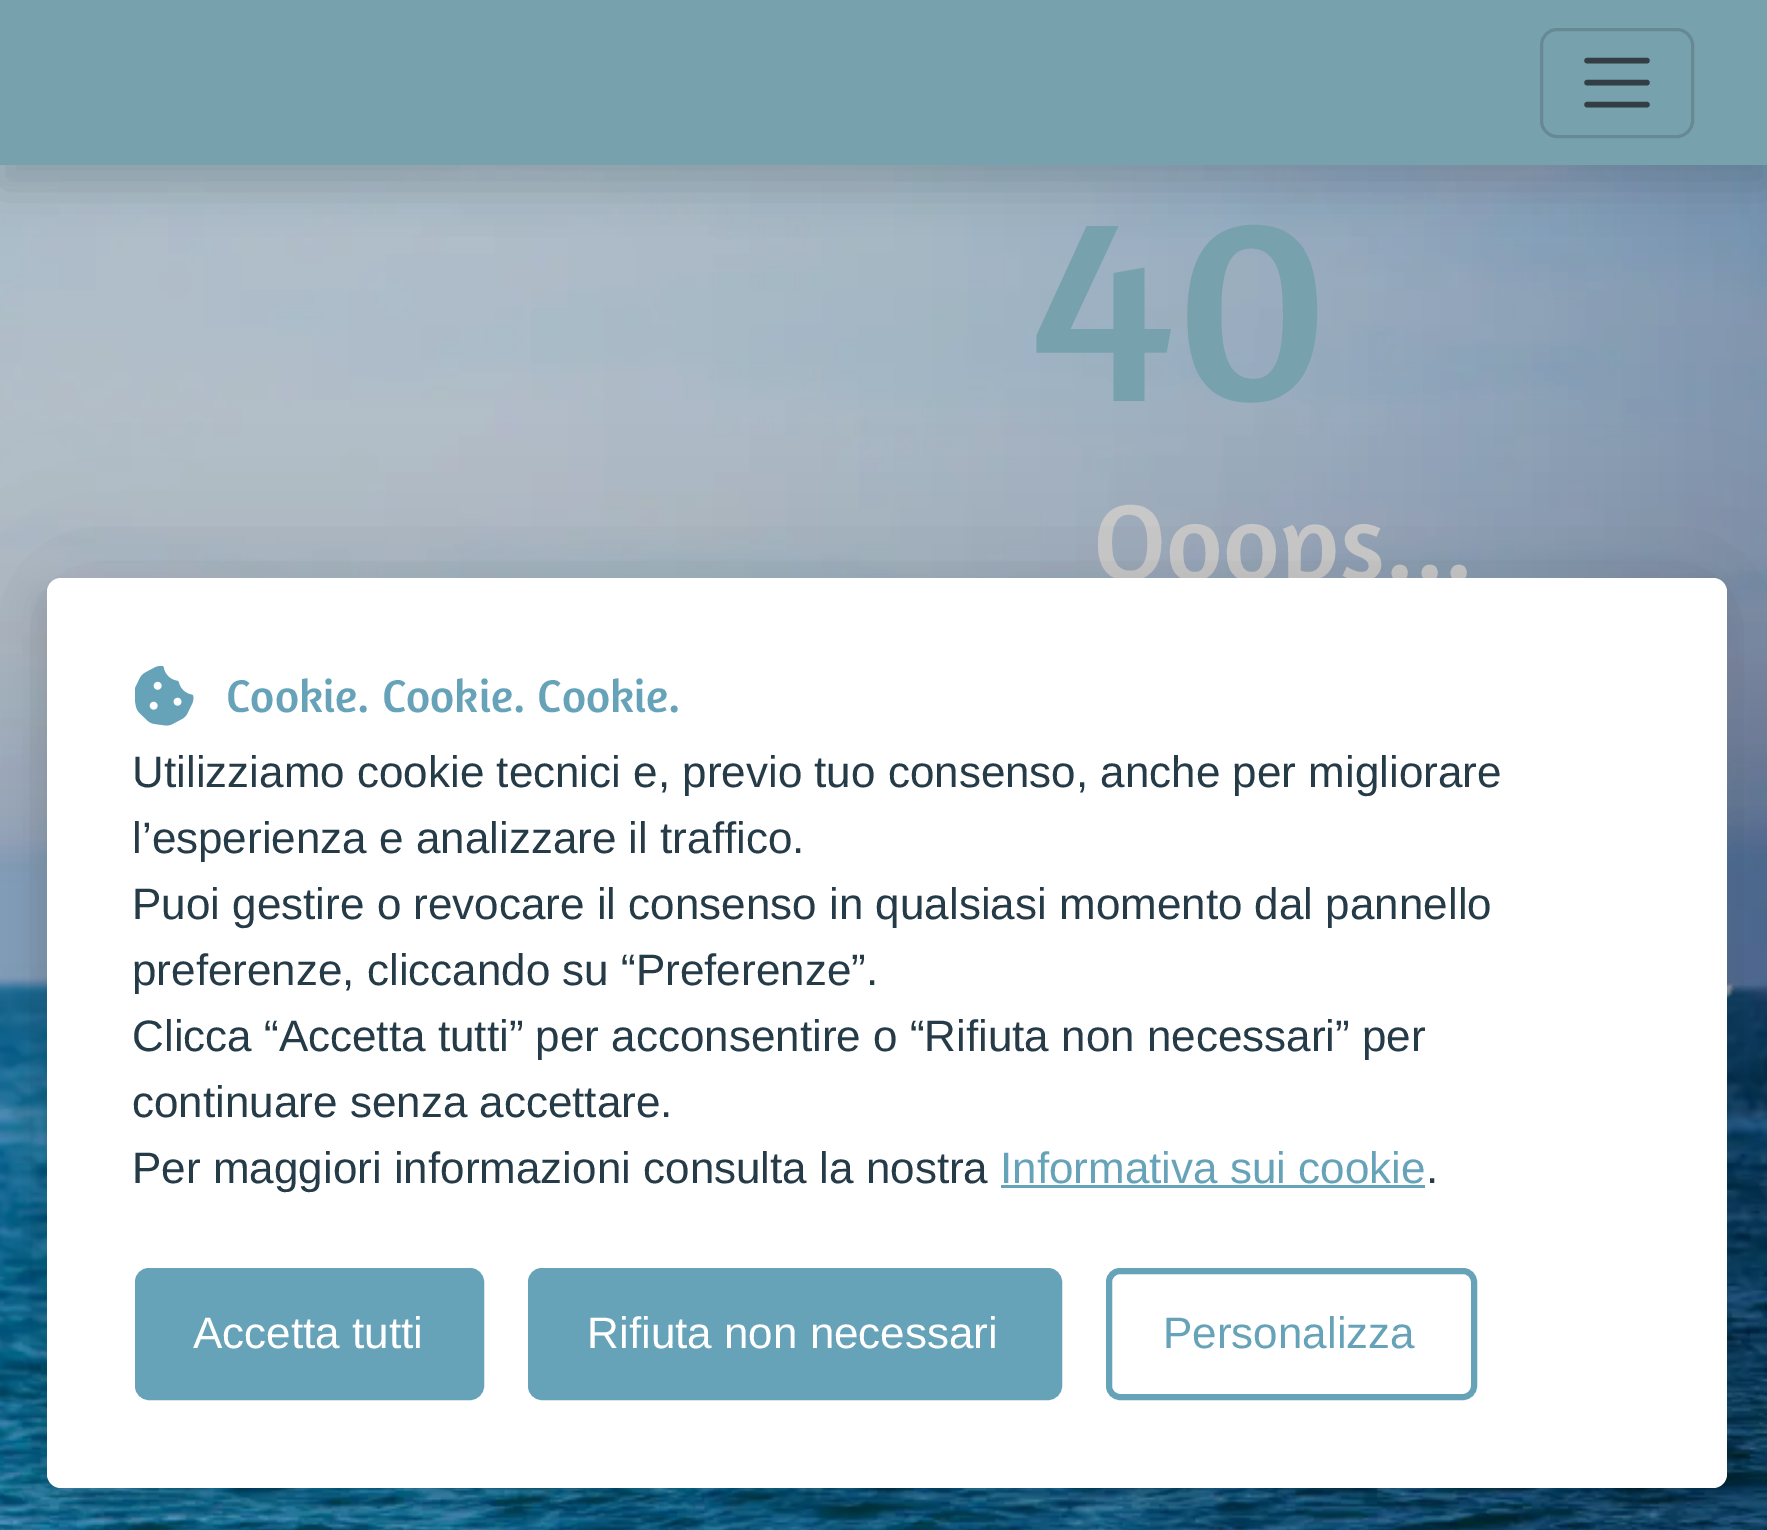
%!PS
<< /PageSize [1767 1530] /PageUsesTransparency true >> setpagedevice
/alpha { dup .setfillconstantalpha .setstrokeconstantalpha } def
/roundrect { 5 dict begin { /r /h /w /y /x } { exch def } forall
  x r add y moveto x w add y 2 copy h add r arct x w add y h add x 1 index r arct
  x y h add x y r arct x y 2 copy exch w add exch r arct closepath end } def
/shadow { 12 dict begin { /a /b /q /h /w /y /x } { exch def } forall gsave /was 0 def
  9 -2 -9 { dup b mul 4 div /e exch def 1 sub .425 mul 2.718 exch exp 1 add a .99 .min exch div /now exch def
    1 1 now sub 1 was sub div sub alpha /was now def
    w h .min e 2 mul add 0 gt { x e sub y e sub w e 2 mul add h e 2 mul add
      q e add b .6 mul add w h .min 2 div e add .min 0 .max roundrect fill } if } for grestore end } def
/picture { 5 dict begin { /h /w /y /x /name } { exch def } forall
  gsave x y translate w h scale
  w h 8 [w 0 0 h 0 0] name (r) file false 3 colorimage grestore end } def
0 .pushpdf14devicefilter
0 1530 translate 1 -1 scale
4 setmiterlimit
1 setgray
0 0 1767 1530 rectfill
(img1.rgb) 0 165 1767 1365 picture
0 setgray
0 22 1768 165 0 22 0.15 shadow
0.471 0.631 0.682 setrgbcolor
0 0 1767 165 rectfill
0.4 0.537 0.58 setrgbcolor
3 setlinewidth
1541.5 29.5 151 107 15.5 roundrect stroke
0.196 0.243 0.267 setrgbcolor
5.5 setlinewidth
1 setlinecap
newpath 1587 60.5 moveto 1647 60.5 lineto 1587 82.5 moveto 1647 82.5 lineto 1587 104.5 moveto 1647 104.5 lineto stroke
/Amaranth-Regular [275 0 0 -275 0 0] selectfont
0.471 0.631 0.682 setrgbcolor
1031 401 moveto (40) show
/Amaranth-Regular [110 0 0 -110 0 0] selectfont
0.8 setgray
1093 580 moveto (Ooops...) show
gsave
newpath 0 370 moveto 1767 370 lineto 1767 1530 lineto 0 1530 lineto closepath 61 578 moveto 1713 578 lineto 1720.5 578 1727 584.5 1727 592 curveto 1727 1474 lineto 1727 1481.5 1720.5 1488 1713 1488 curveto 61 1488 lineto 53.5 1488 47 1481.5 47 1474 curveto 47 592 lineto 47 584.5 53.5 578 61 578 curveto closepath eoclip newpath
0 setgray
47 578 1680 910 14 69 0.1 shadow
grestore
gsave
newpath 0 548 moveto 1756 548 lineto 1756 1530 lineto 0 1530 lineto closepath 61 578 moveto 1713 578 lineto 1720.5 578 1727 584.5 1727 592 curveto 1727 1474 lineto 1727 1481.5 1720.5 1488 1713 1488 curveto 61 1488 lineto 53.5 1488 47 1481.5 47 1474 curveto 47 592 lineto 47 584.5 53.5 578 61 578 curveto closepath eoclip newpath
0 setgray
33 591 1680 911 14 14 0.07 shadow
grestore
1 setgray
47 578 1680 910 14 roundrect fill
(img2.rgb) 135 666 59 60 picture
/Amaranth-Regular [46.75 0 0 -46.75 0 0] selectfont
0.404 0.639 0.722 setrgbcolor
226 712 moveto (Cookie. Cookie. Cookie.) show
/LiberationSans-Regular [44 0 0 -44 0 0] selectfont
0.145 0.231 0.282 setrgbcolor
132 787 moveto (Utilizziamo cookie tecnici e, previo tuo consenso, anche per migliorare) show
132 853 moveto (l’esperienza e analizzare il traffico.) show
132 919 moveto (Puoi gestire o revocare il consenso in qualsiasi momento dal pannello) show
132 985 moveto (preferenze, cliccando su “Preferenze”.) show
132 1051 moveto (Clicca “Accetta tutti” per acconsentire o “Rifiuta non necessari” per) show
132 1117 moveto (continuare senza accettare.) show
132 1183 moveto (Per maggiori informazioni consulta la nostra) show
0.404 0.639 0.722 setrgbcolor
1000 1183 moveto (Informativa sui cookie) show
1001 1185 424 3 rectfill
0.145 0.231 0.282 setrgbcolor
1426 1183 moveto (.) show
0.404 0.639 0.722 setrgbcolor
138 1271 343 126 11 roundrect gsave fill grestore
6 setlinewidth
0 setlinecap
stroke
1 setgray
193 1348 moveto (Accetta tutti) show
0.404 0.639 0.722 setrgbcolor
531 1271 528 126 11 roundrect gsave fill grestore
stroke
1 setgray
587 1348 moveto (Rifiuta non necessari) show
0.404 0.639 0.722 setrgbcolor
1109 1271 365 126 11 roundrect stroke
1163 1348 moveto (Personalizza) show
.poppdf14devicefilter showpage
